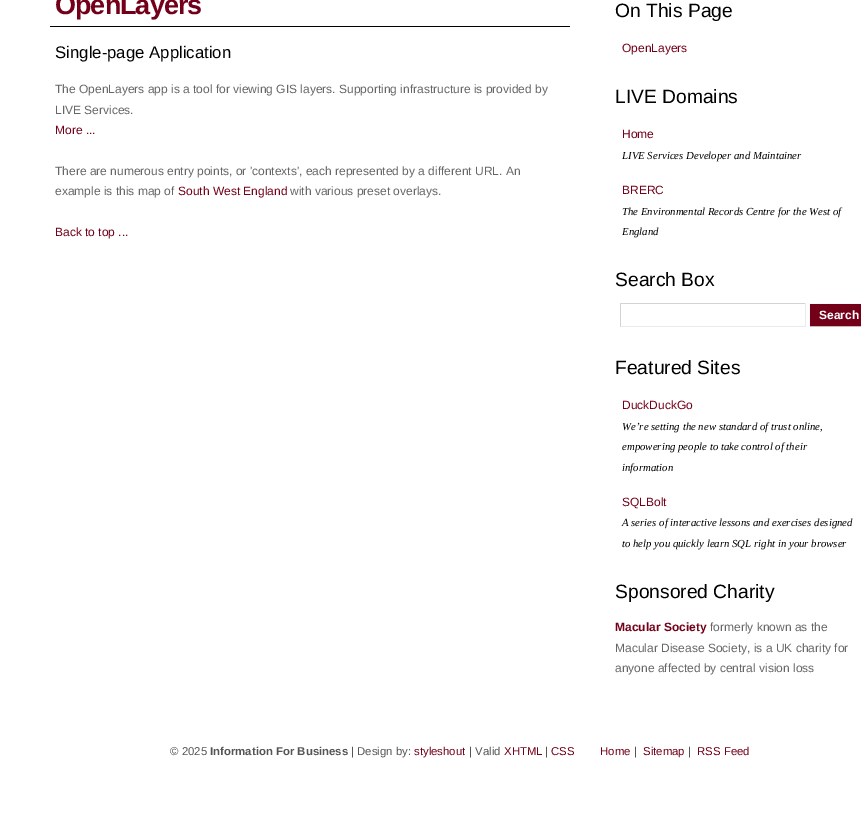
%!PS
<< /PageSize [861 816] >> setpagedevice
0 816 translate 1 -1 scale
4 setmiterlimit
1 setgray
0 0 861 816 rectfill
0 setgray
50 26 520 1 rectfill
/LiberationSans-Bold [27 0 0 -27 0 0] selectfont
0.451 0 0.094 setrgbcolor
55 14 moveto -1 0 (OpenLayers) ashow
/LiberationSans-Regular [16.75 0 0 -16.75 0 0] selectfont
0 setgray
55 58 moveto (Single-page Application) show
/LiberationSans-Regular [12 0 0 -12 0 0] selectfont
0.4 setgray
55 93 moveto (The OpenLayers app is a tool for viewing GIS layers. Supporting infrastructure is provided by) show
55 114 moveto (LIVE Services.) show
0.451 0 0.094 setrgbcolor
55 134 moveto (More ...) show
0.4 setgray
55 175 moveto (There are numerous entry points, or 'contexts', each represented by a different URL. An) show
55 195 moveto (example is this map of) show
0.451 0 0.094 setrgbcolor
178 195 moveto (South West England) show
0.4 setgray
290 195 moveto (with various preset overlays.) show
0.451 0 0.094 setrgbcolor
55 236 moveto (Back to top ...) show
/LiberationSans-Regular [19.25 0 0 -19.25 0 0] selectfont
0 setgray
615 17 moveto (On This Page) show
/LiberationSans-Regular [12 0 0 -12 0 0] selectfont
0.451 0 0.094 setrgbcolor
622 52 moveto (OpenLayers) show
/LiberationSans-Regular [19.25 0 0 -19.25 0 0] selectfont
0 setgray
615 103 moveto (LIVE Domains) show
/LiberationSans-Regular [12 0 0 -12 0 0] selectfont
0.451 0 0.094 setrgbcolor
622 138 moveto (Home) show
/LiberationSerif-Italic [10.8 0 0 -10.8 0 0] selectfont
0 setgray
622 159 moveto (LIVE Services Developer and Maintainer) show
/LiberationSans-Regular [12 0 0 -12 0 0] selectfont
0.451 0 0.094 setrgbcolor
622 194 moveto (BRERC) show
/LiberationSerif-Italic [10.8 0 0 -10.8 0 0] selectfont
0 setgray
622 215 moveto (The Environmental Records Centre for the West of) show
622 235 moveto (England) show
/LiberationSans-Regular [19.25 0 0 -19.25 0 0] selectfont
615 286 moveto (Search Box) show
0.831 setgray
620 303 186 1 rectfill
0.922 setgray
805 303 1 24 rectfill
620 326 186 1 rectfill
0.831 setgray
620 303 1 24 rectfill
0.451 0 0.094 setrgbcolor
810 304 51 22 rectfill
1 0.969 0.969 setrgbcolor
809 303 52 1 rectfill
0.8 0.718 0.718 setrgbcolor
809 326 52 1 rectfill
1 0.969 0.969 setrgbcolor
809 303 1 24 rectfill
/LiberationSans-Bold [12 0 0 -12 0 0] selectfont
1 setgray
819 319 moveto (Search) show
/LiberationSans-Regular [19.25 0 0 -19.25 0 0] selectfont
0 setgray
615 374 moveto (Featured Sites) show
/LiberationSans-Regular [12 0 0 -12 0 0] selectfont
0.451 0 0.094 setrgbcolor
622 409 moveto (DuckDuckGo) show
/LiberationSerif-Italic [10.8 0 0 -10.8 0 0] selectfont
0 setgray
622 430 moveto (We’re setting the new standard of trust online,) show
622 450 moveto (empowering people to take control of their) show
622 471 moveto (information) show
/LiberationSans-Regular [12 0 0 -12 0 0] selectfont
0.451 0 0.094 setrgbcolor
622 506 moveto (SQLBolt) show
/LiberationSerif-Italic [10.8 0 0 -10.8 0 0] selectfont
0 setgray
622 526 moveto (A series of interactive lessons and exercises designed) show
622 547 moveto (to help you quickly learn SQL right in your browser) show
/LiberationSans-Regular [19.25 0 0 -19.25 0 0] selectfont
615 598 moveto (Sponsored Charity) show
/LiberationSans-Bold [12 0 0 -12 0 0] selectfont
0.451 0 0.094 setrgbcolor
615 631 moveto (Macular Society) show
/LiberationSans-Regular [12 0 0 -12 0 0] selectfont
0.4 setgray
710 631 moveto (formerly known as the) show
615 652 moveto (Macular Disease Society, is a UK charity for) show
615 672 moveto (anyone affected by central vision loss) show
/LiberationSans-Regular [11.4 0 0 -11.4 0 0] selectfont
0.333 setgray
170 755 moveto (© 2025) show
/LiberationSans-Bold [11.4 0 0 -11.4 0 0] selectfont
210 755 moveto (Information For Business) show
/LiberationSans-Regular [11.4 0 0 -11.4 0 0] selectfont
351 755 moveto (| Design by:) show
0.451 0 0.094 setrgbcolor
414 755 moveto (styleshout) show
0.333 setgray
469 755 moveto (| Valid) show
0.451 0 0.094 setrgbcolor
504 755 moveto (XHTML) show
0.333 setgray
545 755 moveto (|) show
0.451 0 0.094 setrgbcolor
551 755 moveto (CSS) show
600 755 moveto (Home) show
0.333 setgray
634 755 moveto (|) show
0.451 0 0.094 setrgbcolor
643 755 moveto (Sitemap) show
0.333 setgray
688 755 moveto (|) show
0.451 0 0.094 setrgbcolor
697 755 moveto (RSS Feed) show
showpage
